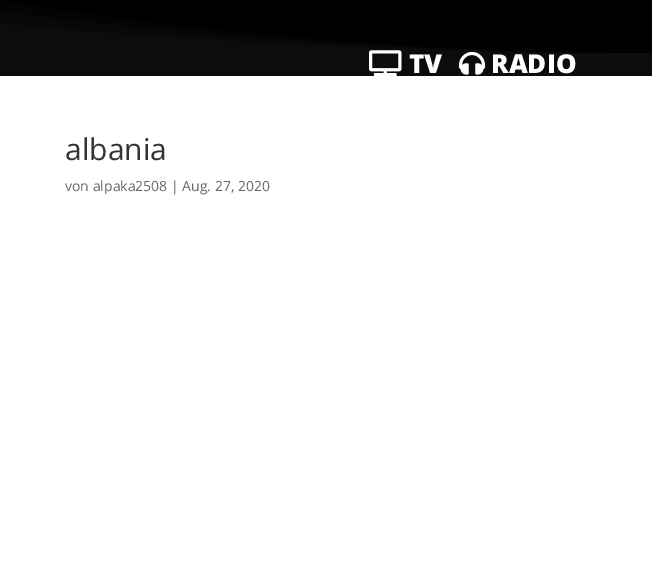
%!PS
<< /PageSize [652 567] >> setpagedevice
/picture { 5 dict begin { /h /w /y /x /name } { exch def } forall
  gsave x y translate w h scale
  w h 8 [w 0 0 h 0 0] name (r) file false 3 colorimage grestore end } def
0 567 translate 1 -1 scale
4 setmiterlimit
0.047 setgray
0 0 652 567 rectfill
0.031 setgray
newpath 0 0 moveto 0 23 lineto 0 23 292 53 652 53 curveto 652 0 lineto closepath fill
0.016 setgray
newpath 0 0 moveto 0 11 lineto 0 11 292 53 652 53 curveto 652 0 lineto closepath fill
0 setgray
newpath 0 0 moveto 0 0 292 53 652 53 curveto 652 0 lineto closepath fill
(img1.rgb) 369 50 33 26 picture
/OpenSans-ExtraBold [26 0 0 -26 0 0] selectfont
1 setgray
409 73 moveto (TV) show
(img2.rgb) 459 51 26 24 picture
491 73 moveto (RADIO) show
0 76 652 491 rectfill
/OpenSans-Regular [30 0 0 -30 0 0] selectfont
0.2 setgray
65 160 moveto (albania) show
/OpenSans-Regular [14 0 0 -14 0 0] selectfont
0.4 setgray
65 191 moveto (von alpaka2508 | Aug. 27, 2020) show
showpage
